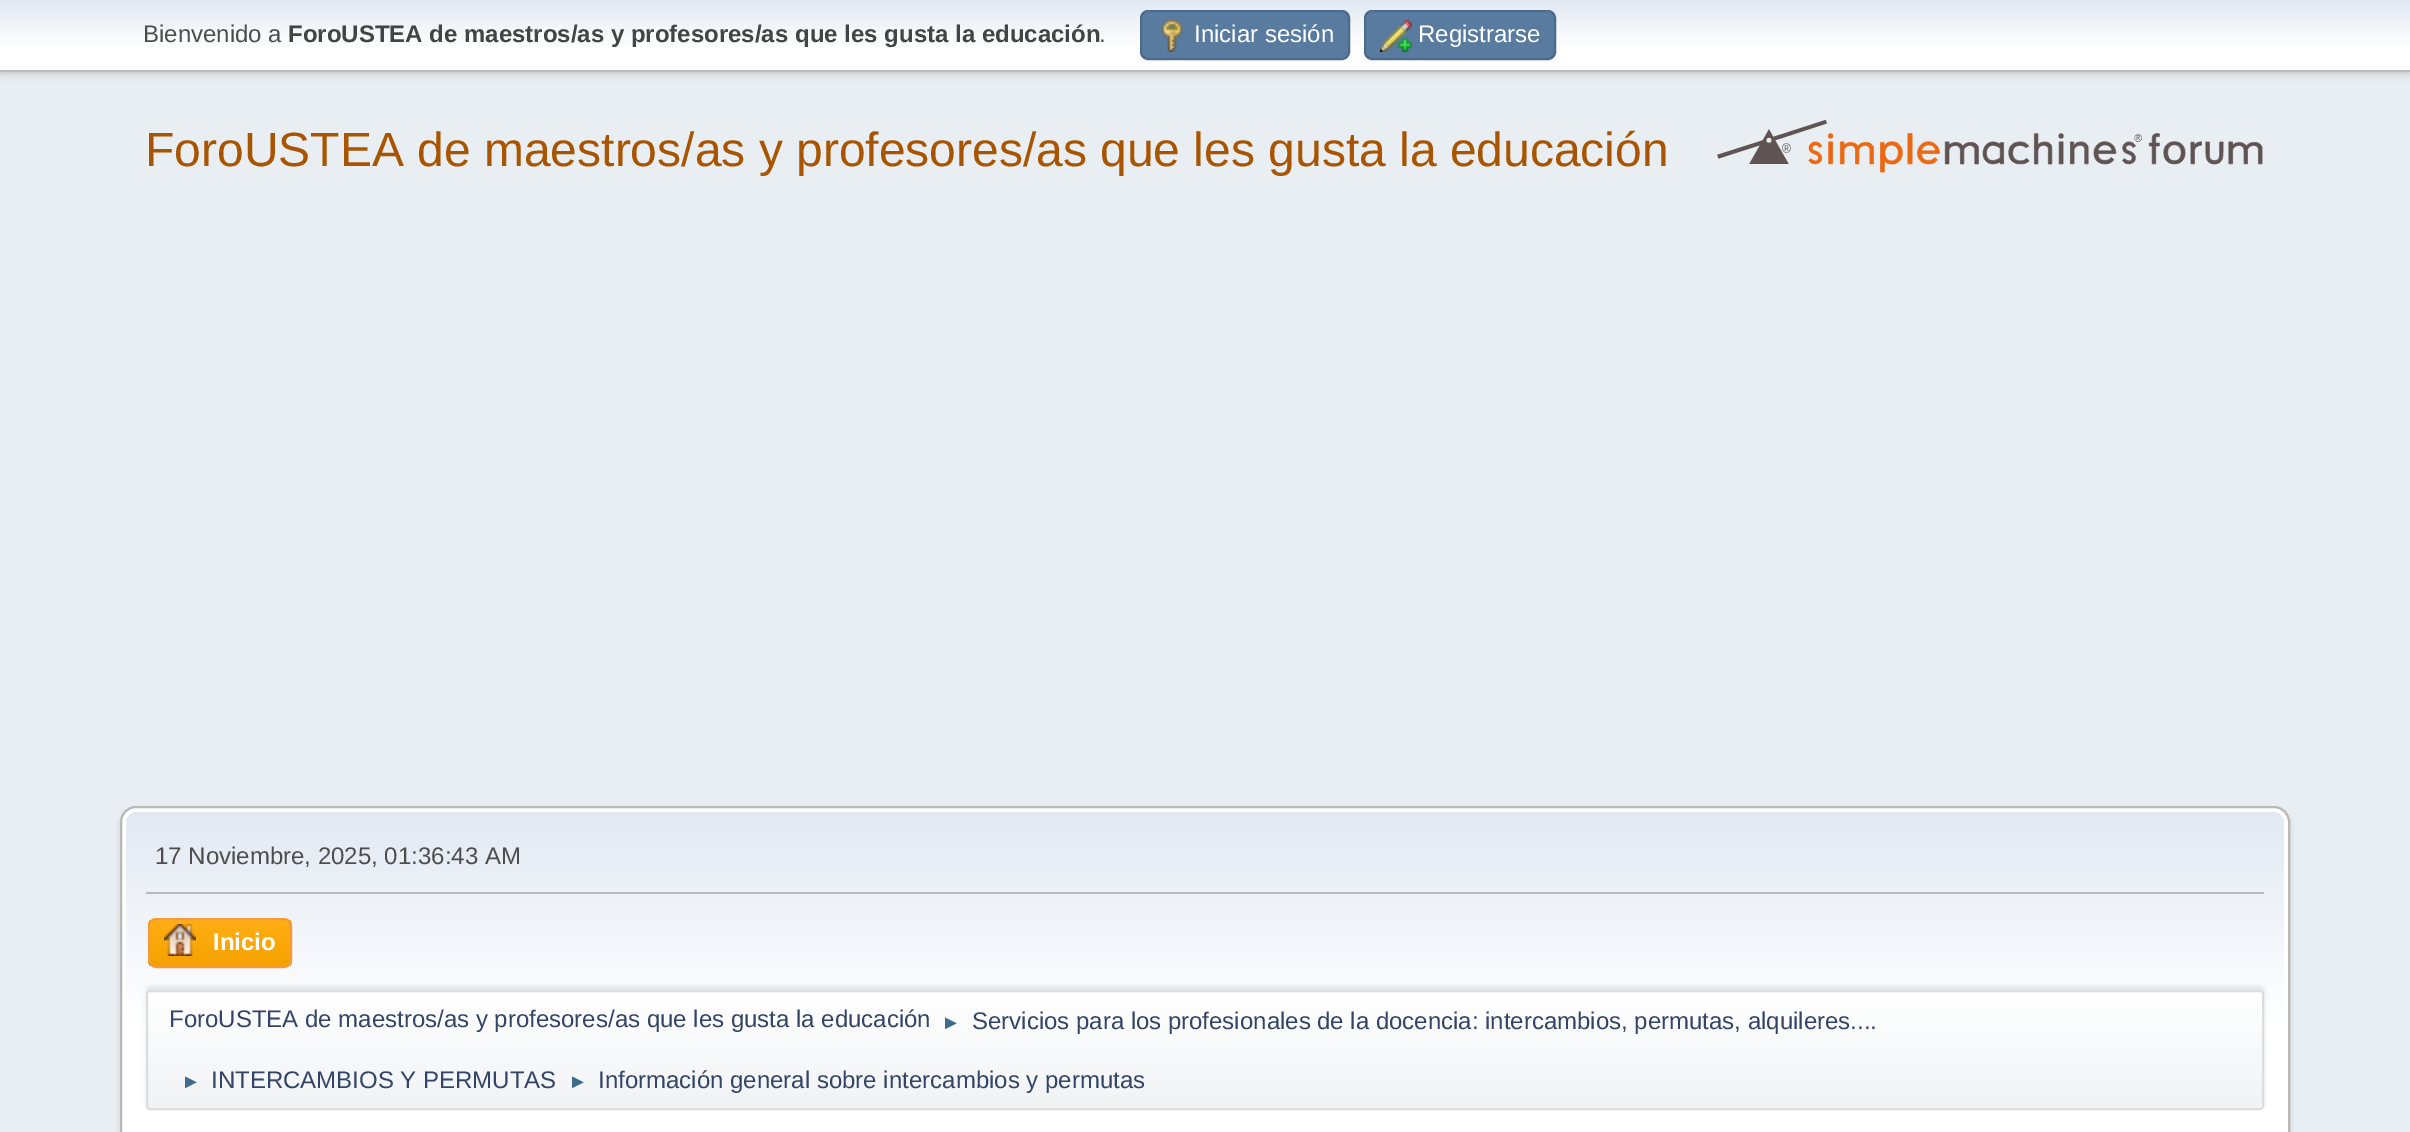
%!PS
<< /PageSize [2410 1132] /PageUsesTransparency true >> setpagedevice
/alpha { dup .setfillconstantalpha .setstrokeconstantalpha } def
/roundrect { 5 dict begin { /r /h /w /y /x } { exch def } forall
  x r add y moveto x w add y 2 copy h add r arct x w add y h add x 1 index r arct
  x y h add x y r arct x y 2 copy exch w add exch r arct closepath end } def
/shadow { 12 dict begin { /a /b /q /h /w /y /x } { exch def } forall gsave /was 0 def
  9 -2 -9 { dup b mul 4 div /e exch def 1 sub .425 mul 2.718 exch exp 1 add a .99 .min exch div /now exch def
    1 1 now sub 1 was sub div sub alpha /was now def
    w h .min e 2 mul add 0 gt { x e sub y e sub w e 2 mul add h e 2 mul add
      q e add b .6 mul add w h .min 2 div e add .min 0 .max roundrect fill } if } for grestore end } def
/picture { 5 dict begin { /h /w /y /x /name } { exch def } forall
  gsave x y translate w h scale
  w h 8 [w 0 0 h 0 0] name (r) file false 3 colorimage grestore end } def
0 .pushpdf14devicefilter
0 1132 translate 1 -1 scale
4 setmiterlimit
0.914 0.933 0.949 setrgbcolor
0 0 2410 1132 rectfill
0 setgray
0 2 2410 72 0 4 0.16 shadow
gsave newpath 0 0 moveto 2410 0 lineto 2410 70 lineto 0 70 lineto closepath clip newpath
<< /ShadingType 2 /ColorSpace /DeviceRGB /Coords [1205 0 1205 70] /Extend [true true] /Function << /FunctionType 3 /Domain [0 1] /Functions [<< /FunctionType 2 /Domain [0 1] /C0 [0.886 0.914 0.953] /C1 [1 1 1] /N 1 >> << /FunctionType 2 /Domain [0 1] /C0 [1 1 1] /C1 [1 1 1] /N 1 >>] /Bounds [0.7] /Encode [0 1 0 1] >> >> shfill grestore
0.733 setgray
0 70 2410 2 rectfill
/LiberationSans-Regular [24 0 0 -24 0 0] selectfont
0.302 setgray
143 42 moveto (Bienvenido a) show
/LiberationSans-Bold [24 0 0 -24 0 0] selectfont
0.267 setgray
288 42 moveto (ForoUSTEA de maestros/as y profesores/as que les gusta la educación) show
/LiberationSans-Regular [24 0 0 -24 0 0] selectfont
0.302 setgray
1099 42 moveto (.) show
0.349 0.482 0.624 setrgbcolor
1141 11 208 48 7 roundrect gsave fill grestore
0.29 0.42 0.549 setrgbcolor
2 setlinewidth
stroke
(img1.rgb) 1161 20 22 32 picture
1 setgray
1194 42 moveto (Iniciar sesión) show
0.349 0.482 0.624 setrgbcolor
1365 11 190 48 7 roundrect gsave fill grestore
0.29 0.42 0.549 setrgbcolor
stroke
(img2.rgb) 1380 20 32 32 picture
1 setgray
1418 42 moveto (Registrarse) show
/LiberationSans-Regular [48 0 0 -48 0 0] selectfont
0.659 0.329 0 setrgbcolor
145 166 moveto (ForoUSTEA de maestros/as y profesores/as que les gusta la educación) show
(img3.rgb) 1717 119 546 54 picture
0 setgray
120 810 2170 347 16 3 0.14 shadow
1 setgray
121 807 2168 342 15 roundrect gsave fill grestore
0.722 setgray
stroke
gsave newpath 138 812 moveto 2272 812 lineto 2278.5 812 2284 817.5 2284 824 curveto 2284 1114 lineto 126 1114 lineto 126 824 lineto 126 817.5 131.5 812 138 812 curveto closepath clip newpath
<< /ShadingType 2 /ColorSpace /DeviceRGB /Coords [1205 812 1205 1114] /Extend [true true] /Function << /FunctionType 3 /Domain [0 1] /Functions [<< /FunctionType 2 /Domain [0 1] /C0 [0.886 0.914 0.953] /C1 [1 1 1] /N 1 >> << /FunctionType 2 /Domain [0 1] /C0 [1 1 1] /C1 [1 1 1] /N 1 >>] /Bounds [0.7] /Encode [0 1 0 1] >> >> shfill grestore
0.733 setgray
146 892 2118 2 rectfill
/LiberationSans-Regular [24 0 0 -24 0 0] selectfont
0.302 setgray
155 864 moveto (17 Noviembre, 2025, 01:36:43 AM) show
gsave
148 918 144 50 8 roundrect clip newpath
gsave newpath 148 920 moveto 292 920 lineto 292 966 lineto 148 966 lineto closepath clip newpath
<< /ShadingType 2 /ColorSpace /DeviceRGB /Coords [220 920 220 966] /Extend [true true] /Function << /FunctionType 2 /Domain [0 1] /C0 [1 0.682 0.078] /C1 [0.961 0.631 0] /N 1 >> >> shfill grestore
grestore
0.957 0.604 0.227 setrgbcolor
149 919 142 48 7 roundrect stroke
(img4.rgb) 164 924 32 32 picture
/LiberationSans-Bold [24 0 0 -24 0 0] selectfont
1 setgray
213 950 moveto (Inicio) show
0 setgray
146 986 2118 120 4 2 0.08 shadow
gsave
146 990 2118 120 4 roundrect clip newpath
gsave newpath 146 992 moveto 2264 992 lineto 2264 1108 lineto 146 1108 lineto closepath clip newpath
<< /ShadingType 2 /ColorSpace /DeviceRGB /Coords [1205 992 1205 1108] /Extend [true true] /Function << /FunctionType 3 /Domain [0 1] /Functions [<< /FunctionType 2 /Domain [0 1] /C0 [1 1 1] /C1 [0.945 0.953 0.961] /N 1 >> << /FunctionType 2 /Domain [0 1] /C0 [0.945 0.953 0.961] /C1 [0.945 0.953 0.961] /N 1 >>] /Bounds [0.95] /Encode [0 1 0 1] >> >> shfill grestore
grestore
0.867 setgray
147 991 2116 118 3 roundrect stroke
/LiberationSans-Regular [24 0 0 -24 0 0] selectfont
0.2 0.267 0.4 setrgbcolor
169 1027 moveto (ForoUSTEA de maestros/as y profesores/as que les gusta la educación) show
/LiberationSans-Regular [20 0 0 -20 0 0] selectfont
0.247 0.42 0.549 setrgbcolor
941 1029 moveto (►) show
/LiberationSans-Regular [24 0 0 -24 0 0] selectfont
0.2 0.267 0.4 setrgbcolor
972 1029 moveto -0.1 0 32 (Servicios para los profesionales de la docencia: intercambios, permutas, alquileres....) widthshow
/LiberationSans-Regular [20 0 0 -20 0 0] selectfont
0.247 0.42 0.549 setrgbcolor
181 1088 moveto (►) show
/LiberationSans-Regular [24 0 0 -24 0 0] selectfont
0.2 0.267 0.4 setrgbcolor
211 1088 moveto (INTERCAMBIOS Y PERMUTAS) show
/LiberationSans-Regular [20 0 0 -20 0 0] selectfont
0.247 0.42 0.549 setrgbcolor
568 1088 moveto (►) show
/LiberationSans-Regular [24 0 0 -24 0 0] selectfont
0.2 0.267 0.4 setrgbcolor
598 1088 moveto (Información general sobre intercambios y permutas) show
.poppdf14devicefilter showpage
